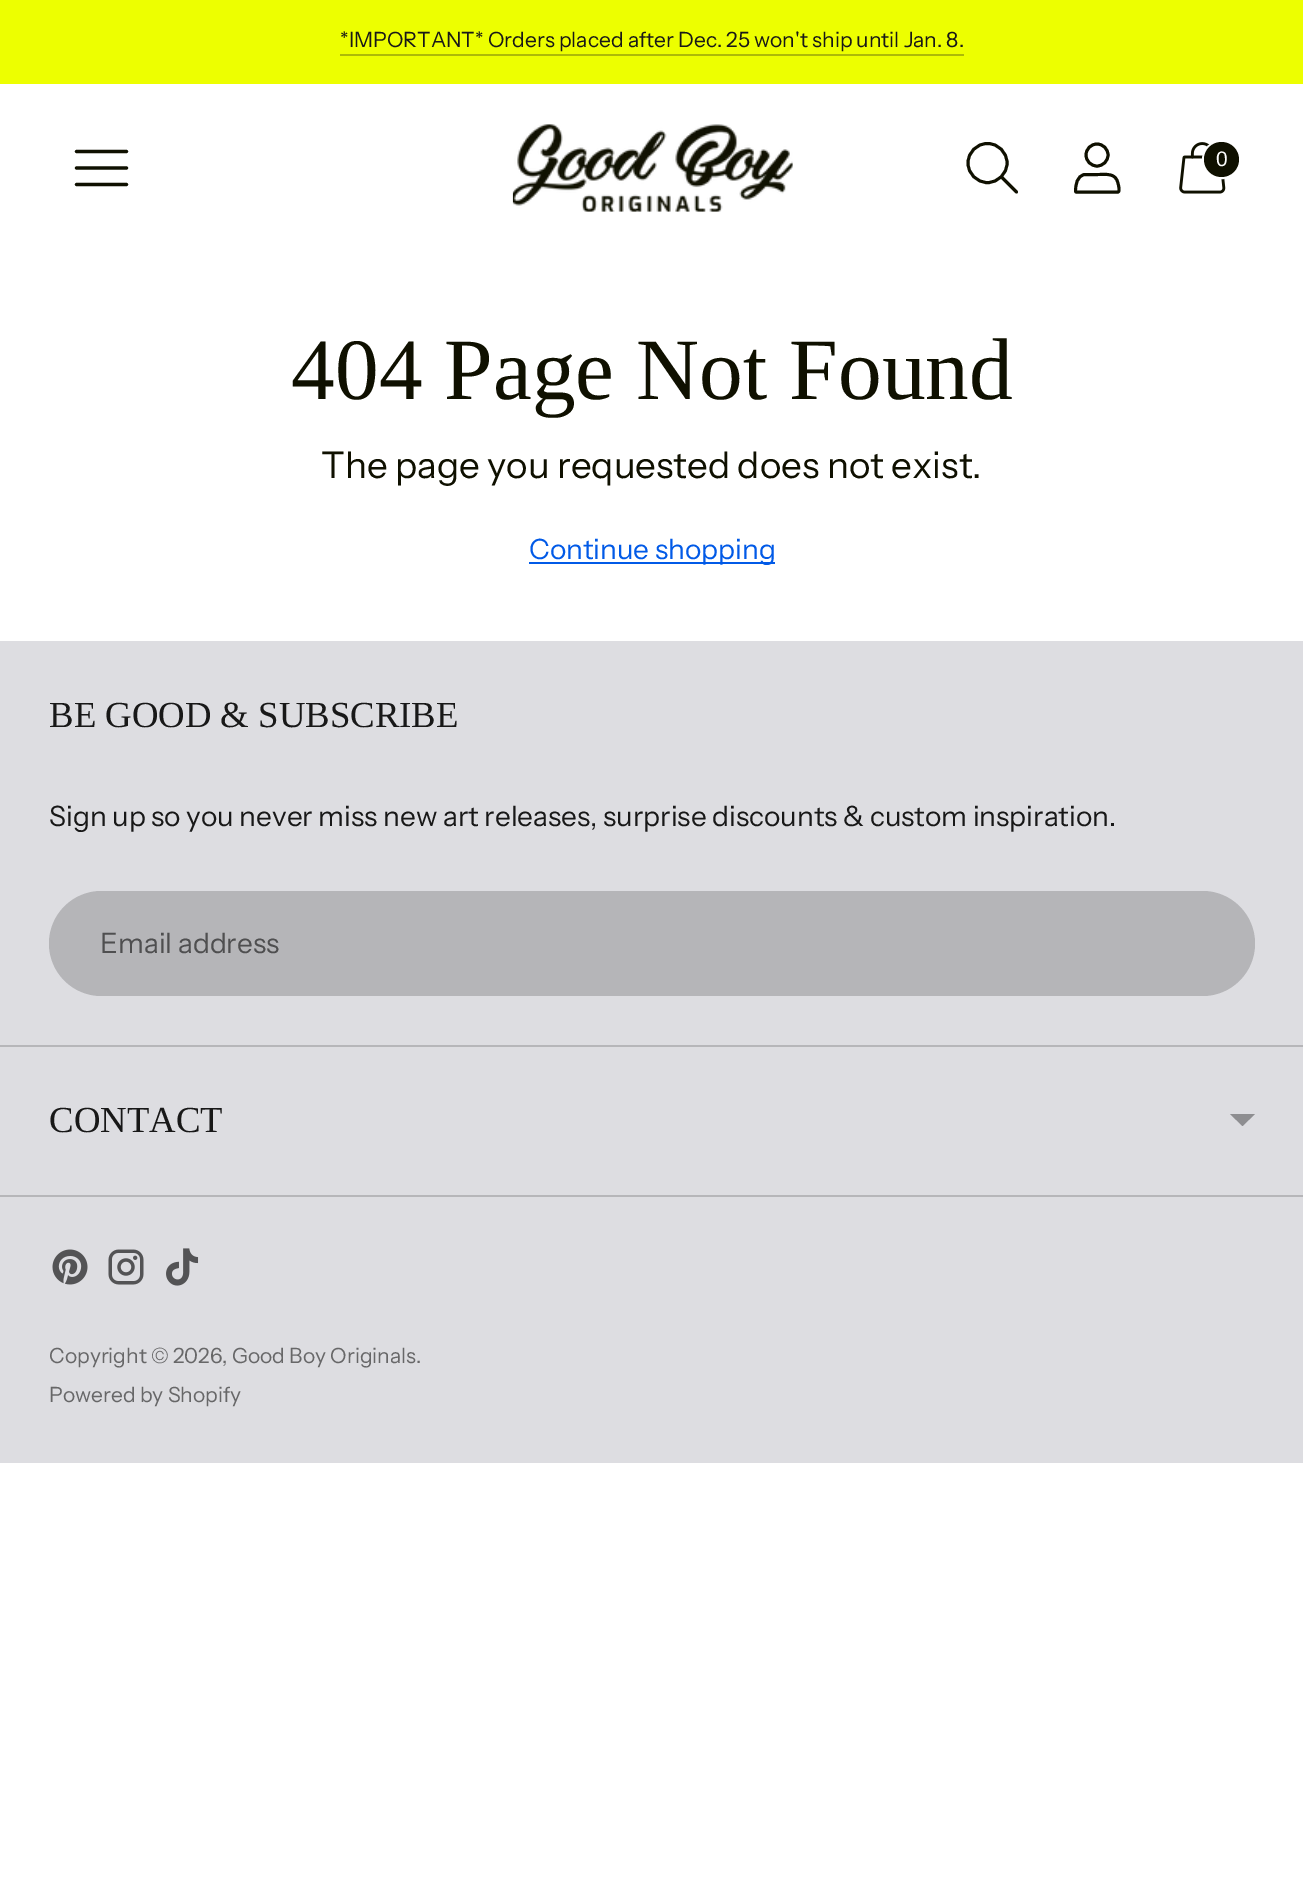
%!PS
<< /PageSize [1303 1881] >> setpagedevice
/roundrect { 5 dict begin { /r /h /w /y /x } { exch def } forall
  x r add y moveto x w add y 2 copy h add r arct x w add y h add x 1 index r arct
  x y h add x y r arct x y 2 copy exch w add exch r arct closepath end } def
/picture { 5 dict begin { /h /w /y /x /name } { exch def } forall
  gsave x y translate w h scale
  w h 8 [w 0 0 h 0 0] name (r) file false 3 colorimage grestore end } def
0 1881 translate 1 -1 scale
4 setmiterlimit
1 setgray
0 0 1303 1881 rectfill
0.929 1 0 setrgbcolor
0 0 1303 84 rectfill
/InstrumentSans-Regular [21 0 0 -21 0 0] selectfont
0.094 setgray
340 47 moveto (*IMPORTANT* Orders placed after Dec. 25 won't ship until Jan. 8.) show
0.678 0.729 0.027 setrgbcolor
340 54 624 2 rectfill
0.059 0.063 0 setrgbcolor
3.2 setlinewidth
1 setlinecap
1 setlinejoin
newpath 76.5 168 moveto 126.5 168 lineto 76.5 151.5 moveto 126.5 151.5 lineto 76.5 184.5 moveto 126.5 184.5 lineto stroke
(img1.rgb) 512 124 281 88 picture
2.9 setlinewidth
0 setlinecap
0 setlinejoin
newpath 987.5 163 19.5 0 360 arc closepath stroke
1 setlinecap
1 setlinejoin
newpath 1002.5 178 moveto 1016.5 192 lineto stroke
0 setlinecap
0 setlinejoin
newpath 1097 155 11 0 360 arc closepath stroke
1 setlinecap
1 setlinejoin
newpath 1118 192 moveto 1120 192 1118.5 184.5 1118 183.5 curveto 1116 172.5 1106 174.5 1097 174.5 curveto 1084.5 174.5 lineto 1077 176 1075.5 184.5 1075.5 191.5 curveto 1076 192 lineto closepath stroke
(img2.rgb) 1179 142 47 52 picture
1 setgray
2 setlinewidth
0 setlinecap
0 setlinejoin
newpath 1221.5 159.5 18.5 0 360 arc closepath stroke
0.059 0.063 0 setrgbcolor
newpath 1221.5 159.5 17.5 0 360 arc closepath fill
/LiberationSans-Regular [21 0 0 -21 0 0] selectfont
1 setgray
1216 166 moveto (0) show
/LiberationSerif-Regular [87.5 0 0 -87.5 0 0] selectfont
0.059 0.063 0 setrgbcolor
291 399 moveto (404 Page Not Found) show
/InstrumentSans-Regular [36.75 0 0 -36.75 0 0] selectfont
321 478 moveto (The page you requested does not exist.) show
0.004 0.353 0.906 setrgbcolor
529 562 246 2 rectfill
/InstrumentSans-Regular [28 0 0 -28 0 0] selectfont
529 559 moveto (Continue shopping) show
0.867 0.867 0.882 setrgbcolor
0 641 1303 822 rectfill
0.714 0.714 0.725 setrgbcolor
0 1045 1303 2 rectfill
/LiberationSerif-Regular [36.75 0 0 -36.75 0 0] selectfont
0.094 setgray
49 727 moveto (BE GOOD & SUBSCRIBE) show
/InstrumentSans-Regular [28 0 0 -28 0 0] selectfont
49 826 moveto (Sign up so you never miss new art releases, surprise discounts & custom inspiration.) show
0.71 0.71 0.722 setrgbcolor
49 891 1206 105 52.5 roundrect fill
0.31 0.31 0.314 setrgbcolor
100 953 moveto (Email address) show
0.714 0.714 0.725 setrgbcolor
0 1195 1303 2 rectfill
/LiberationSerif-Regular [36.75 0 0 -36.75 0 0] selectfont
0.094 setgray
49 1132 moveto (CONTACT) show
0.557 0.557 0.569 setrgbcolor
newpath 1230 1114 moveto 1242.5 1126 lineto 1255 1114 lineto closepath fill
(img3.rgb) 52 1249 36 36 picture
(img4.rgb) 108 1249 36 36 picture
(img5.rgb) 166 1248 33 38 picture
/InstrumentSans-Regular [21 0 0 -21 0 0] selectfont
0.404 0.404 0.408 setrgbcolor
49 1363 moveto (Copyright © 2026, Good Boy Originals.) show
49 1402 moveto (Powered by Shopify) show
showpage
